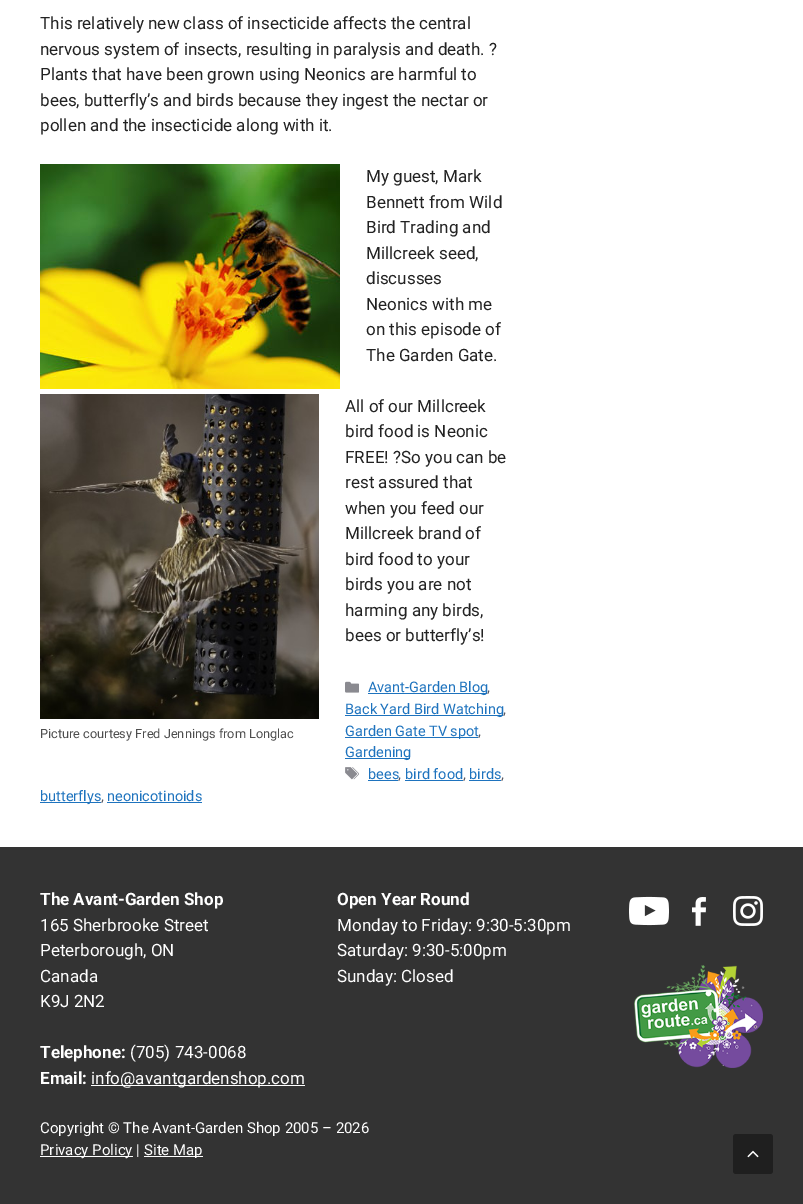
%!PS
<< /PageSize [803 1204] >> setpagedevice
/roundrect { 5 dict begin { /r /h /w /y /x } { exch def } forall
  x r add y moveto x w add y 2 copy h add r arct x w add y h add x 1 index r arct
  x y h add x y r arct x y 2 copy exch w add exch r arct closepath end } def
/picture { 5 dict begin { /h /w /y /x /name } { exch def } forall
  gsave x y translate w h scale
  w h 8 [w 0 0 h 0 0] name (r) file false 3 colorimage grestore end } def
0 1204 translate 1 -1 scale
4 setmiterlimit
1 setgray
0 0 803 1204 rectfill
/Roboto-Regular [17 0 0 -17 0 0] selectfont
0.133 setgray
40 29 moveto (This relatively new class of insecticide affects the central) show
40 55 moveto (nervous system of insects, resulting in paralysis and death. ?) show
40 80 moveto (Plants that have been grown using Neonics are harmful to) show
40 106 moveto (bees, butterfly’s and birds because they ingest the nectar or) show
40 131 moveto (pollen and the insecticide along with it.) show
(img1.rgb) 40 164 300 225 picture
366 182 moveto (My guest, Mark) show
366 208 moveto (Bennett from Wild) show
366 233 moveto (Bird Trading and) show
366 259 moveto (Millcreek seed,) show
366 284 moveto (discusses) show
366 310 moveto (Neonics with me) show
366 335 moveto (on this episode of) show
366 361 moveto (The Garden Gate.) show
345 412 moveto (All of our Millcreek) show
345 437 moveto (bird food is Neonic) show
345 463 moveto (FREE! ?So you can be) show
345 488 moveto (rest assured that) show
345 514 moveto (when you feed our) show
345 539 moveto (Millcreek brand of) show
345 565 moveto (bird food to your) show
345 590 moveto (birds you are not) show
345 616 moveto (harming any birds,) show
345 641 moveto (bees or butterfly’s!) show
(img2.rgb) 40 394 279 325 picture
/Roboto-Regular [12.75 0 0 -12.75 0 0] selectfont
0.306 setgray
40 738 moveto (Picture courtesy Fred Jennings from Longlac) show
(img3.rgb) 345 681 14 12 picture
0.118 0.451 0.745 setrgbcolor
368 693 119 1 rectfill
/Roboto-Regular [14.5 0 0 -14.5 0 0] selectfont
368 692 moveto (Avant-Garden Blog) show
0.341 0.341 0.376 setrgbcolor
487 692 moveto (,) show
0.118 0.451 0.745 setrgbcolor
345 715 158 1 rectfill
345 714 moveto (Back Yard Bird Watching) show
0.341 0.341 0.376 setrgbcolor
503 714 moveto (,) show
0.118 0.451 0.745 setrgbcolor
345 737 133 1 rectfill
345 736 moveto (Garden Gate TV spot) show
0.341 0.341 0.376 setrgbcolor
478 736 moveto (,) show
0.118 0.451 0.745 setrgbcolor
345 758 65 1 rectfill
345 757 moveto (Gardening) show
(img4.rgb) 345 767 14 13 picture
368 779 moveto (bees) show
368 780 30 1 rectfill
0.341 0.341 0.376 setrgbcolor
398 779 moveto (,) show
0.118 0.451 0.745 setrgbcolor
405 779 moveto (bird food) show
405 780 58 1 rectfill
0.341 0.341 0.376 setrgbcolor
463 779 moveto (,) show
0.118 0.451 0.745 setrgbcolor
469 779 moveto (birds) show
469 780 32 1 rectfill
0.341 0.341 0.376 setrgbcolor
501 779 moveto (,) show
0.118 0.451 0.745 setrgbcolor
40 802 61 1 rectfill
40 801 moveto (butterflys) show
0.341 0.341 0.376 setrgbcolor
101 801 moveto (,) show
0.118 0.451 0.745 setrgbcolor
107 801 moveto (neonicotinoids) show
107 802 95 1 rectfill
0.2 setgray
0 847 803 357 rectfill
/Roboto-Bold [17 0 0 -17 0 0] selectfont
1 setgray
40 905 moveto (The Avant-Garden Shop) show
/Roboto-Regular [17 0 0 -17 0 0] selectfont
40 931 moveto (165 Sherbrooke Street) show
40 956 moveto (Peterborough, ON) show
40 982 moveto (Canada) show
40 1007 moveto (K9J 2N2) show
/Roboto-Bold [17 0 0 -17 0 0] selectfont
40 1058 moveto (Telephone:) show
/Roboto-Regular [17 0 0 -17 0 0] selectfont
130 1058 moveto (\(705\) 743-0068) show
/Roboto-Bold [17 0 0 -17 0 0] selectfont
40 1084 moveto (Email:) show
91 1085 214 1 rectfill
/Roboto-Regular [17 0 0 -17 0 0] selectfont
91 1084 moveto (info@avantgardenshop.com) show
/Roboto-Bold [17 0 0 -17 0 0] selectfont
337 905 moveto (Open Year Round) show
/Roboto-Regular [17 0 0 -17 0 0] selectfont
337 931 moveto (Monday to Friday: 9:30-5:30pm) show
337 956 moveto (Saturday: 9:30-5:00pm) show
337 982 moveto (Sunday: Closed) show
(img5.rgb) 629 896 40 30 picture
(img6.rgb) 692 897 14 29 picture
(img7.rgb) 733 896 30 30 picture
(img8.rgb) 634 965 129 103 picture
/Roboto-Regular [15 0 0 -15 0 0] selectfont
40 1133 moveto (Copyright © The Avant-Garden Shop 2005 – 2026) show
40 1156 93 1 rectfill
40 1155 moveto (Privacy Policy |) show
144 1156 59 1 rectfill
144 1155 moveto (Site Map) show
0.122 setgray
733 1134 40 40 3 roundrect fill
(img9.rgb) 747 1150 12 8 picture
showpage
